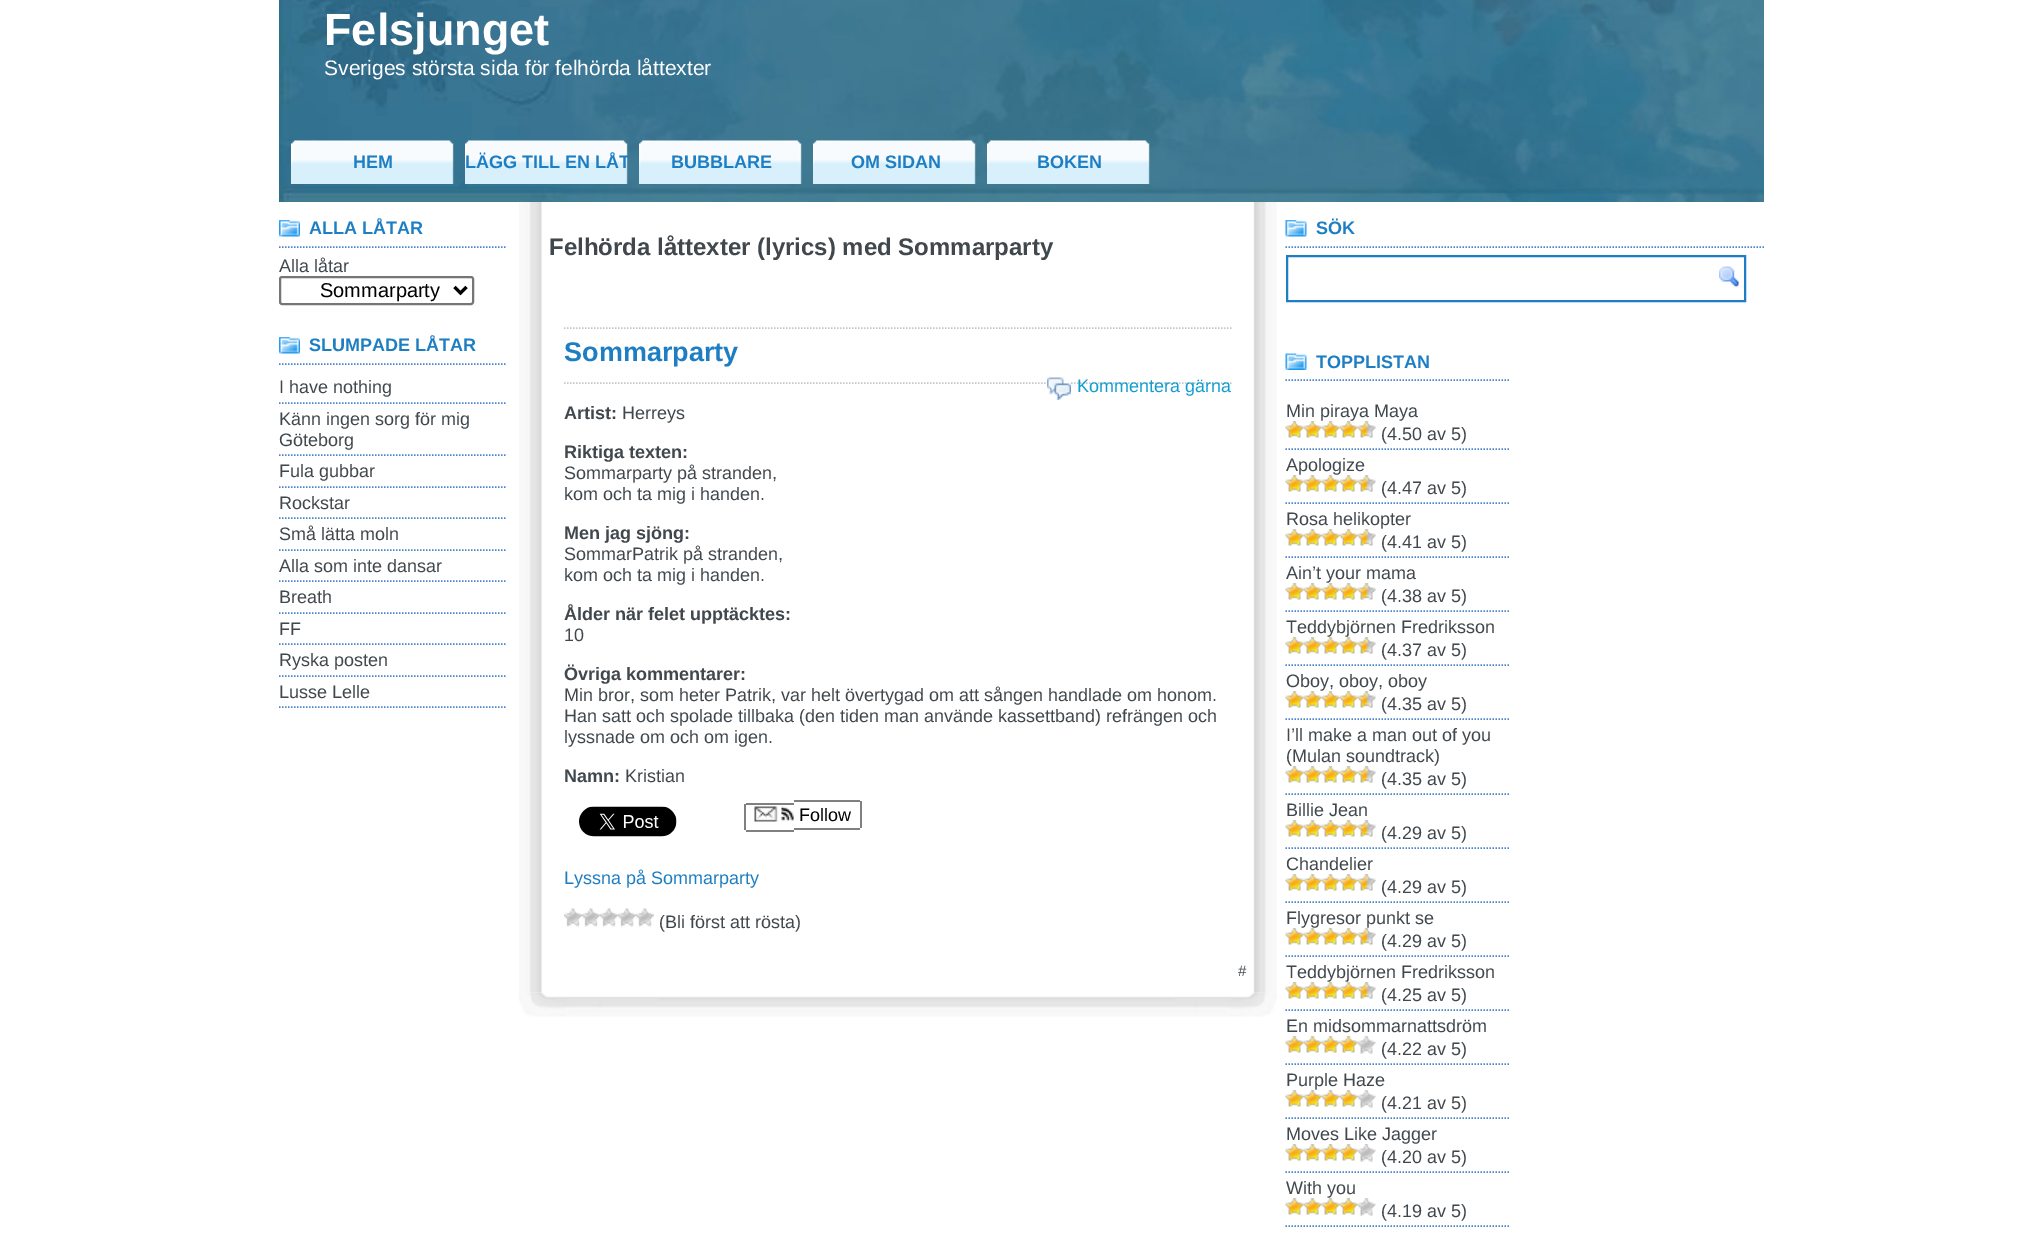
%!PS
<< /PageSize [2042 1245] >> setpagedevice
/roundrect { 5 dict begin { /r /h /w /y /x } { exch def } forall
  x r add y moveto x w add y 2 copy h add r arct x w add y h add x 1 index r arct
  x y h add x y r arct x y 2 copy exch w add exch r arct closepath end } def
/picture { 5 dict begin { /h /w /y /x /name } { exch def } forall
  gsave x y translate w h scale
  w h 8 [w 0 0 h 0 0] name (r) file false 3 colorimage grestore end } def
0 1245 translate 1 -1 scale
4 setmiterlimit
1 setgray
0 0 2042 1245 rectfill
(img1.rgb) 279 0 1485 202 picture
/LiberationSans-Bold [45 0 0 -45 0 0] selectfont
324 45 moveto (Felsjunget) show
/LiberationSans-Regular [21 0 0 -21 0 0] selectfont
324 75 moveto (Sveriges största sida för felhörda låttexter) show
(img2.rgb) 291 140 163 44 picture
/LiberationSans-Bold [18 0 0 -18 0 0] selectfont
0.118 0.494 0.765 setrgbcolor
353 168 moveto (HEM) show
(img3.rgb) 465 140 163 44 picture
465 168 moveto (LÄGG TILL EN LÅT) show
(img4.rgb) 639 140 163 44 picture
671 168 moveto (BUBBLARE) show
(img5.rgb) 813 140 163 44 picture
851 168 moveto (OM SIDAN) show
(img6.rgb) 987 140 163 44 picture
1037 168 moveto (BOKEN) show
(img7.rgb) 279 220 21 17 picture
0.298 0.522 0.796 setrgbcolor
1.5 setlinewidth
[1.5 1.5] 0 setdash
newpath 279 247 moveto 507 247 lineto stroke
0.118 0.494 0.765 setrgbcolor
309 234 moveto (ALLA LÅTAR) show
/LiberationSans-Regular [18 0 0 -18 0 0] selectfont
0.255 0.282 0.302 setrgbcolor
279 272 moveto (Alla låtar) show
0.463 setgray
2 setlinewidth
[] 0 setdash
280 277 193 27 2 roundrect stroke
0 setgray
3 setlinewidth
newpath 454.5 287 moveto 460.5 293 lineto 466.5 287 lineto stroke
/LiberationSans-Regular [20 0 0 -20 0 0] selectfont
320 297 moveto (Sommarparty) show
(img7.rgb) 279 337 21 17 picture
0.298 0.522 0.796 setrgbcolor
1.5 setlinewidth
[1.5 1.5] 0 setdash
newpath 279 364 moveto 507 364 lineto stroke
/LiberationSans-Bold [18 0 0 -18 0 0] selectfont
0.118 0.494 0.765 setrgbcolor
309 351 moveto (SLUMPADE LÅTAR) show
0.298 0.522 0.796 setrgbcolor
newpath 279 403 moveto 507 403 lineto stroke
/LiberationSans-Regular [18 0 0 -18 0 0] selectfont
0.255 0.282 0.302 setrgbcolor
279 393 moveto (I have nothing) show
0.298 0.522 0.796 setrgbcolor
newpath 279 455 moveto 507 455 lineto stroke
0.255 0.282 0.302 setrgbcolor
279 425 moveto (Känn ingen sorg för mig) show
279 446 moveto (Göteborg) show
0.298 0.522 0.796 setrgbcolor
newpath 279 487 moveto 507 487 lineto stroke
0.255 0.282 0.302 setrgbcolor
279 477 moveto (Fula gubbar) show
0.298 0.522 0.796 setrgbcolor
newpath 279 518 moveto 507 518 lineto stroke
0.255 0.282 0.302 setrgbcolor
279 509 moveto (Rockstar) show
0.298 0.522 0.796 setrgbcolor
newpath 279 550 moveto 507 550 lineto stroke
0.255 0.282 0.302 setrgbcolor
279 540 moveto (Små lätta moln) show
0.298 0.522 0.796 setrgbcolor
newpath 279 581 moveto 507 581 lineto stroke
0.255 0.282 0.302 setrgbcolor
279 572 moveto (Alla som inte dansar) show
0.298 0.522 0.796 setrgbcolor
newpath 279 613 moveto 507 613 lineto stroke
0.255 0.282 0.302 setrgbcolor
279 603 moveto (Breath) show
0.298 0.522 0.796 setrgbcolor
newpath 279 644 moveto 507 644 lineto stroke
0.255 0.282 0.302 setrgbcolor
279 635 moveto (FF) show
0.298 0.522 0.796 setrgbcolor
newpath 279 676 moveto 507 676 lineto stroke
0.255 0.282 0.302 setrgbcolor
279 666 moveto (Ryska posten) show
0.298 0.522 0.796 setrgbcolor
newpath 279 707 moveto 507 707 lineto stroke
0.255 0.282 0.302 setrgbcolor
279 698 moveto (Lusse Lelle) show
(img8.rgb) 519 992 758 25 picture
(img9.rgb) 519 202 758 791 picture
/LiberationSans-Bold [24 0 0 -24 0 0] selectfont
549 255 moveto (Felhörda låttexter \(lyrics\) med Sommarparty) show
0.761 0.784 0.8 setrgbcolor
newpath 564 328 moveto 1231.5 328 lineto stroke
/LiberationSans-Bold [27 0 0 -27 0 0] selectfont
0.118 0.494 0.765 setrgbcolor
564 361 moveto (Sommarparty) show
0.761 0.784 0.8 setrgbcolor
newpath 564 383 moveto 1231.5 383 lineto stroke
(img10.rgb) 1047 377 24 23 picture
/LiberationSans-Regular [18 0 0 -18 0 0] selectfont
0.063 0.616 0.816 setrgbcolor
1077 392 moveto (Kommentera gärna) show
/LiberationSans-Bold [18 0 0 -18 0 0] selectfont
0.255 0.282 0.302 setrgbcolor
564 419 moveto (Artist:) show
/LiberationSans-Regular [18 0 0 -18 0 0] selectfont
622 419 moveto (Herreys) show
/LiberationSans-Bold [18 0 0 -18 0 0] selectfont
564 458 moveto (Riktiga texten:) show
/LiberationSans-Regular [18 0 0 -18 0 0] selectfont
564 479 moveto (Sommarparty på stranden,) show
564 500 moveto (kom och ta mig i handen.) show
/LiberationSans-Bold [18 0 0 -18 0 0] selectfont
564 539 moveto (Men jag sjöng:) show
/LiberationSans-Regular [18 0 0 -18 0 0] selectfont
564 560 moveto (SommarPatrik på stranden,) show
564 581 moveto (kom och ta mig i handen.) show
/LiberationSans-Bold [18 0 0 -18 0 0] selectfont
564 620 moveto (Ålder när felet upptäcktes:) show
/LiberationSans-Regular [18 0 0 -18 0 0] selectfont
564 641 moveto (10) show
/LiberationSans-Bold [18 0 0 -18 0 0] selectfont
564 680 moveto (Övriga kommentarer:) show
/LiberationSans-Regular [18 0 0 -18 0 0] selectfont
564 701 moveto (Min bror, som heter Patrik, var helt övertygad om att sången handlade om honom.) show
564 722 moveto (Han satt och spolade tillbaka \(den tiden man använde kassettband\) refrängen och) show
564 743 moveto (lyssnade om och om igen.) show
/LiberationSans-Bold [18 0 0 -18 0 0] selectfont
564 782 moveto (Namn:) show
/LiberationSans-Regular [18 0 0 -18 0 0] selectfont
625 782 moveto (Kristian) show
(img11.rgb) 579 806 98 31 picture
(img12.rgb) 754 806 40 16 picture
0 setgray
799 821 moveto (Follow) show
0.502 setgray
746 803 48 2 rectfill
746 830 48 2 rectfill
744 804 2 26 rectfill
794 800 66 2 rectfill
860 801 2 27 rectfill
794 828 66 2 rectfill
0.118 0.494 0.765 setrgbcolor
564 884 moveto (Lyssna på Sommarparty) show
(img13.rgb) 564 908 18 19 picture
(img13.rgb) 582 908 18 19 picture
(img13.rgb) 600 908 18 19 picture
(img14.rgb) 618 908 18 19 picture
(img14.rgb) 636 908 18 19 picture
0.255 0.282 0.302 setrgbcolor
659 928 moveto (\(Bli först att rösta\)) show
/LiberationSans-Regular [15 0 0 -15 0 0] selectfont
1238 976 moveto (#) show
(img15.rgb) 1285 220 22 17 picture
0.298 0.522 0.796 setrgbcolor
newpath 1285.5 247 moveto 1764 247 lineto stroke
/LiberationSans-Bold [18 0 0 -18 0 0] selectfont
0.118 0.494 0.765 setrgbcolor
1316 234 moveto (SÖK) show
(img16.rgb) 1719 266 20 22 picture
2 setlinewidth
[] 0 setdash
1287 256 458 45 rectstroke
(img17.rgb) 1285 353 22 17 picture
0.298 0.522 0.796 setrgbcolor
1.5 setlinewidth
[1.5 1.5] 0 setdash
newpath 1285.5 380 moveto 1510.5 380 lineto stroke
0.118 0.494 0.765 setrgbcolor
1316 368 moveto (TOPPLISTAN) show
0.298 0.522 0.796 setrgbcolor
newpath 1285.5 449 moveto 1510.5 449 lineto stroke
/LiberationSans-Regular [18 0 0 -18 0 0] selectfont
0.255 0.282 0.302 setrgbcolor
1286 417 moveto (Min piraya Maya) show
(img18.rgb) 1285 421 19 17 picture
(img19.rgb) 1303 421 19 17 picture
(img19.rgb) 1321 421 19 17 picture
(img19.rgb) 1339 421 19 17 picture
(img20.rgb) 1357 421 19 17 picture
1381 440 moveto (\(4.50 av 5\)) show
0.298 0.522 0.796 setrgbcolor
newpath 1285.5 503 moveto 1510.5 503 lineto stroke
0.255 0.282 0.302 setrgbcolor
1286 471 moveto (Apologize) show
(img18.rgb) 1285 475 19 17 picture
(img19.rgb) 1303 475 19 17 picture
(img19.rgb) 1321 475 19 17 picture
(img19.rgb) 1339 475 19 17 picture
(img20.rgb) 1357 475 19 17 picture
1381 494 moveto (\(4.47 av 5\)) show
0.298 0.522 0.796 setrgbcolor
newpath 1285.5 557 moveto 1510.5 557 lineto stroke
0.255 0.282 0.302 setrgbcolor
1286 525 moveto (Rosa helikopter) show
(img18.rgb) 1285 529 19 17 picture
(img19.rgb) 1303 529 19 17 picture
(img19.rgb) 1321 529 19 17 picture
(img19.rgb) 1339 529 19 17 picture
(img20.rgb) 1357 529 19 17 picture
1381 548 moveto (\(4.41 av 5\)) show
0.298 0.522 0.796 setrgbcolor
newpath 1285.5 611 moveto 1510.5 611 lineto stroke
0.255 0.282 0.302 setrgbcolor
1286 579 moveto (Ain’t your mama) show
(img18.rgb) 1285 583 19 17 picture
(img19.rgb) 1303 583 19 17 picture
(img19.rgb) 1321 583 19 17 picture
(img19.rgb) 1339 583 19 17 picture
(img20.rgb) 1357 583 19 17 picture
1381 602 moveto (\(4.38 av 5\)) show
0.298 0.522 0.796 setrgbcolor
newpath 1285.5 665 moveto 1510.5 665 lineto stroke
0.255 0.282 0.302 setrgbcolor
1286 633 moveto (Teddybjörnen Fredriksson) show
(img18.rgb) 1285 637 19 17 picture
(img19.rgb) 1303 637 19 17 picture
(img19.rgb) 1321 637 19 17 picture
(img19.rgb) 1339 637 19 17 picture
(img20.rgb) 1357 637 19 17 picture
1381 656 moveto (\(4.37 av 5\)) show
0.298 0.522 0.796 setrgbcolor
newpath 1285.5 719 moveto 1510.5 719 lineto stroke
0.255 0.282 0.302 setrgbcolor
1286 687 moveto (Oboy, oboy, oboy) show
(img18.rgb) 1285 691 19 17 picture
(img19.rgb) 1303 691 19 17 picture
(img19.rgb) 1321 691 19 17 picture
(img19.rgb) 1339 691 19 17 picture
(img20.rgb) 1357 691 19 17 picture
1381 710 moveto (\(4.35 av 5\)) show
0.298 0.522 0.796 setrgbcolor
newpath 1285.5 794 moveto 1510.5 794 lineto stroke
0.255 0.282 0.302 setrgbcolor
1286 741 moveto (I’ll make a man out of you) show
1286 762 moveto (\(Mulan soundtrack\)) show
(img18.rgb) 1285 766 19 17 picture
(img19.rgb) 1303 766 19 17 picture
(img19.rgb) 1321 766 19 17 picture
(img19.rgb) 1339 766 19 17 picture
(img20.rgb) 1357 766 19 17 picture
1381 785 moveto (\(4.35 av 5\)) show
0.298 0.522 0.796 setrgbcolor
newpath 1285.5 848 moveto 1510.5 848 lineto stroke
0.255 0.282 0.302 setrgbcolor
1286 816 moveto (Billie Jean) show
(img18.rgb) 1285 820 19 17 picture
(img19.rgb) 1303 820 19 17 picture
(img19.rgb) 1321 820 19 17 picture
(img19.rgb) 1339 820 19 17 picture
(img20.rgb) 1357 820 19 17 picture
1381 839 moveto (\(4.29 av 5\)) show
0.298 0.522 0.796 setrgbcolor
newpath 1285.5 902 moveto 1510.5 902 lineto stroke
0.255 0.282 0.302 setrgbcolor
1286 870 moveto (Chandelier) show
(img18.rgb) 1285 874 19 17 picture
(img19.rgb) 1303 874 19 17 picture
(img19.rgb) 1321 874 19 17 picture
(img19.rgb) 1339 874 19 17 picture
(img20.rgb) 1357 874 19 17 picture
1381 893 moveto (\(4.29 av 5\)) show
0.298 0.522 0.796 setrgbcolor
newpath 1285.5 956 moveto 1510.5 956 lineto stroke
0.255 0.282 0.302 setrgbcolor
1286 924 moveto (Flygresor punkt se) show
(img18.rgb) 1285 928 19 17 picture
(img19.rgb) 1303 928 19 17 picture
(img19.rgb) 1321 928 19 17 picture
(img19.rgb) 1339 928 19 17 picture
(img20.rgb) 1357 928 19 17 picture
1381 947 moveto (\(4.29 av 5\)) show
0.298 0.522 0.796 setrgbcolor
newpath 1285.5 1010 moveto 1510.5 1010 lineto stroke
0.255 0.282 0.302 setrgbcolor
1286 978 moveto (Teddybjörnen Fredriksson) show
(img18.rgb) 1285 982 19 17 picture
(img19.rgb) 1303 982 19 17 picture
(img19.rgb) 1321 982 19 17 picture
(img19.rgb) 1339 982 19 17 picture
(img20.rgb) 1357 982 19 17 picture
1381 1001 moveto (\(4.25 av 5\)) show
0.298 0.522 0.796 setrgbcolor
newpath 1285.5 1064 moveto 1510.5 1064 lineto stroke
0.255 0.282 0.302 setrgbcolor
1286 1032 moveto (En midsommarnattsdröm) show
(img18.rgb) 1285 1036 19 17 picture
(img19.rgb) 1303 1036 19 17 picture
(img19.rgb) 1321 1036 19 17 picture
(img19.rgb) 1339 1036 19 17 picture
(img21.rgb) 1357 1036 19 18 picture
1381 1055 moveto (\(4.22 av 5\)) show
0.298 0.522 0.796 setrgbcolor
newpath 1285.5 1118 moveto 1510.5 1118 lineto stroke
0.255 0.282 0.302 setrgbcolor
1286 1086 moveto (Purple Haze) show
(img18.rgb) 1285 1090 19 17 picture
(img19.rgb) 1303 1090 19 17 picture
(img19.rgb) 1321 1090 19 17 picture
(img19.rgb) 1339 1090 19 17 picture
(img21.rgb) 1357 1090 19 18 picture
1381 1109 moveto (\(4.21 av 5\)) show
0.298 0.522 0.796 setrgbcolor
newpath 1285.5 1172 moveto 1510.5 1172 lineto stroke
0.255 0.282 0.302 setrgbcolor
1286 1140 moveto (Moves Like Jagger) show
(img18.rgb) 1285 1144 19 17 picture
(img19.rgb) 1303 1144 19 17 picture
(img19.rgb) 1321 1144 19 17 picture
(img19.rgb) 1339 1144 19 17 picture
(img21.rgb) 1357 1144 19 18 picture
1381 1163 moveto (\(4.20 av 5\)) show
0.298 0.522 0.796 setrgbcolor
newpath 1285.5 1226 moveto 1510.5 1226 lineto stroke
0.255 0.282 0.302 setrgbcolor
1286 1194 moveto (With you) show
(img18.rgb) 1285 1198 19 17 picture
(img19.rgb) 1303 1198 19 17 picture
(img19.rgb) 1321 1198 19 17 picture
(img19.rgb) 1339 1198 19 17 picture
(img21.rgb) 1357 1198 19 18 picture
1381 1217 moveto (\(4.19 av 5\)) show
showpage
